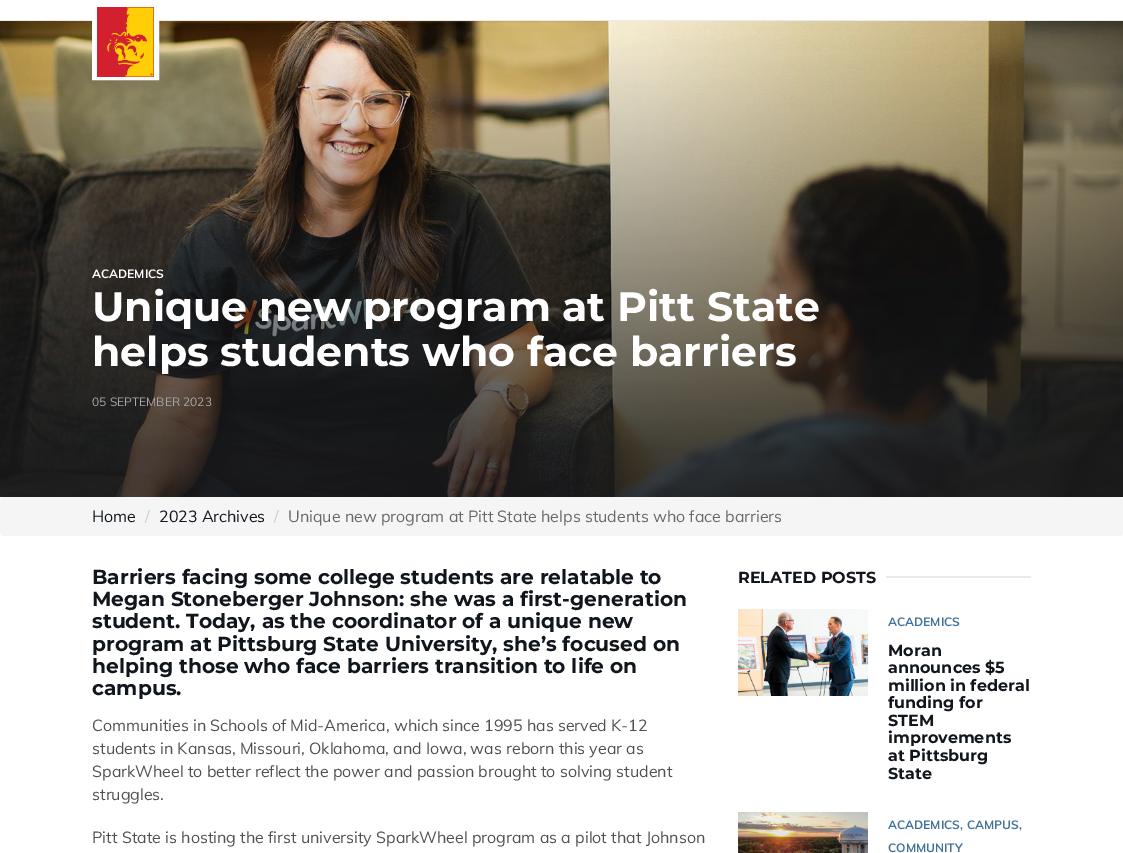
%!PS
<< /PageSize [1123 853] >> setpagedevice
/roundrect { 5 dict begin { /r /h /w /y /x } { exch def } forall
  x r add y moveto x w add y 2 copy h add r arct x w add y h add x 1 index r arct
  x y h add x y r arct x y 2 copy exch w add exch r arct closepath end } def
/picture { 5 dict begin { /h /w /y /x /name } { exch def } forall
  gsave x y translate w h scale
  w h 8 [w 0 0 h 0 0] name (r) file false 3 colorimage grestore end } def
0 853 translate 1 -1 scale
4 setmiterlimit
1 setgray
0 0 1123 853 rectfill
0.91 0.918 0.929 setrgbcolor
0 20 1123 1 rectfill
(img2.rgb) 0 21 1123 476 picture
1 setgray
5 setlinewidth
94.5 2.5 62 75 rectstroke
(img1.rgb) 97 7 57 70 picture
/Muli-Bold [12 0 0 -12 0 0] selectfont
92 278 moveto (ACADEMICS) show
/Montserrat-Bold [41 0 0 -41 0 0] selectfont
92 321 moveto (Unique new program at Pitt State) show
92 366 moveto (helps students who face barriers) show
/Muli-Regular [12 0 0 -12 0 0] selectfont
0.655 0.659 0.671 setrgbcolor
92 406 moveto (05 SEPTEMBER 2023) show
0.961 setgray
0 497 1123 39 4 roundrect fill
/Muli-Regular [16 0 0 -16 0 0] selectfont
0.067 0.082 0.11 setrgbcolor
92 522 moveto (Home) show
0.8 setgray
145 522 moveto (/) show
0.067 0.082 0.11 setrgbcolor
159 522 moveto (2023 Archives) show
0.8 setgray
274 522 moveto (/) show
0.408 setgray
288 522 moveto (Unique new program at Pitt State helps students who face barriers) show
/Montserrat-Bold [20.25 0 0 -20.25 0 0] selectfont
0.067 0.082 0.11 setrgbcolor
92 584 moveto (Barriers facing some college students are relatable to) show
92 606 moveto (Megan Stoneberger Johnson: she was a first-generation) show
92 628 moveto (student. Today, as the coordinator of a unique new) show
92 651 moveto (program at Pittsburg State University, she’s focused on) show
92 673 moveto (helping those who face barriers transition to life on) show
92 695 moveto (campus.) show
/Muli-Regular [16 0 0 -16 0 0] selectfont
0.314 setgray
92 731 moveto (Communities in Schools of Mid-America, which since 1995 has served K-12) show
92 754 moveto (students in Kansas, Missouri, Oklahoma, and Iowa, was reborn this year as) show
92 777 moveto (SparkWheel to better reflect the power and passion brought to solving student) show
92 800 moveto (struggles.) show
92 843 moveto (Pitt State is hosting the first university SparkWheel program as a pilot that Johnson) show
/Montserrat-Bold [16 0 0 -16 0 0] selectfont
0.067 0.082 0.11 setrgbcolor
738 583 moveto (RELATED POSTS) show
0.91 0.918 0.929 setrgbcolor
886 576 145 2 rectfill
(img3.rgb) 738 609 130 87 picture
/Muli-Bold [12 0 0 -12 0 0] selectfont
0.263 0.451 0.612 setrgbcolor
888 626 moveto (ACADEMICS) show
/Montserrat-Bold [16 0 0 -16 0 0] selectfont
0.067 0.082 0.11 setrgbcolor
888 656 moveto (Moran) show
888 673 moveto (announces $5) show
888 691 moveto (million in federal) show
888 708 moveto (funding for) show
888 726 moveto (STEM) show
888 743 moveto (improvements) show
888 761 moveto (at Pittsburg) show
888 779 moveto (State) show
(img4.rgb) 738 812 130 41 picture
/Muli-Bold [12 0 0 -12 0 0] selectfont
0.263 0.451 0.612 setrgbcolor
888 829 moveto (ACADEMICS,) show
967 829 moveto (CAMPUS,) show
888 852 moveto (COMMUNITY) show
showpage
